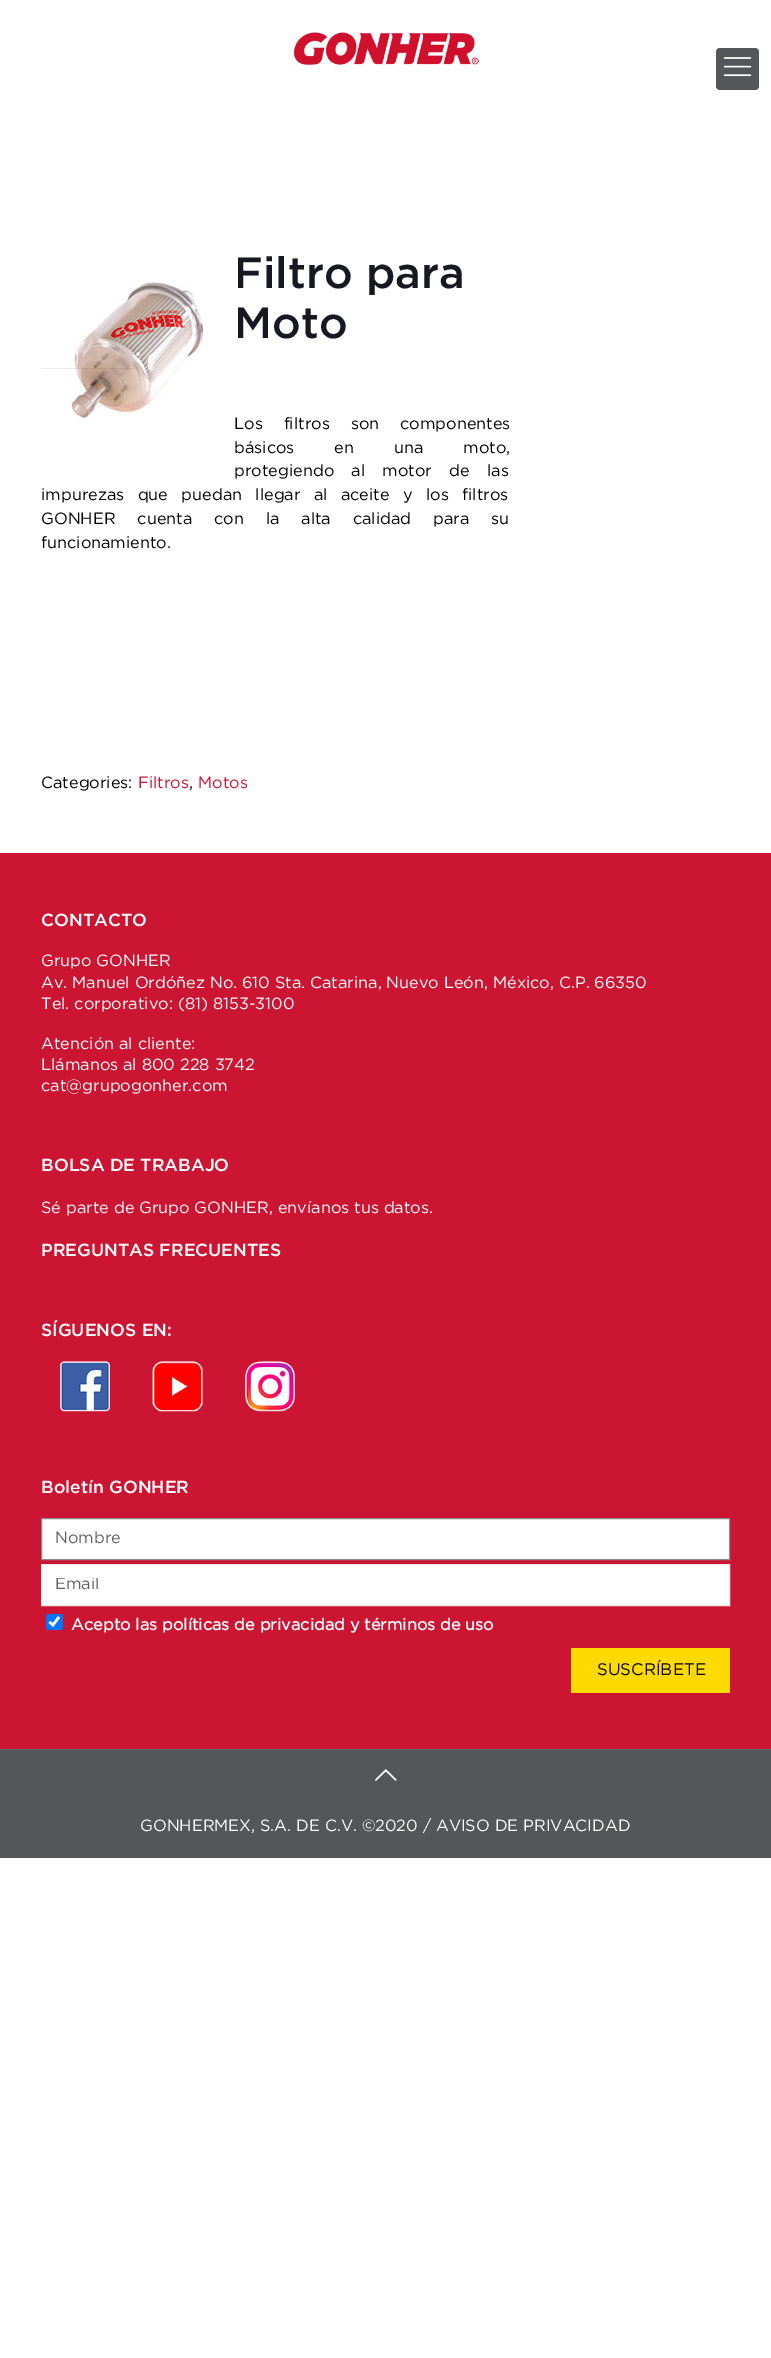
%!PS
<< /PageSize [771 2358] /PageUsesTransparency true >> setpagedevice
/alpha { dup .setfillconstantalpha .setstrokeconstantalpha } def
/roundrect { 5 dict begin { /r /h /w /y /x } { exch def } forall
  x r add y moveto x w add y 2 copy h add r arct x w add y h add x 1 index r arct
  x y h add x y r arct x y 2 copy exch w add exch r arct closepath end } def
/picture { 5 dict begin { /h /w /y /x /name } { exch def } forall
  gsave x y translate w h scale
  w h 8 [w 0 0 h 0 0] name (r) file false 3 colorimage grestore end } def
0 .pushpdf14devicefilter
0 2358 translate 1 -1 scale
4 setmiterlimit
1 setgray
0 0 771 2358 rectfill
(img1.rgb) 293 32 186 33 picture
0.333 0.337 0.353 setrgbcolor
716 48 43 42 4 roundrect fill
(img2.rgb) 723 57 29 20 picture
/Gotham-Medium [43.75 0 0 -43.75 0 0] selectfont
0.086 0.098 0.133 setrgbcolor
234 288 moveto (Filtro para) show
234 338 moveto (Moto) show
(img3.rgb) 68 282 137 137 picture
0.08 alpha
0 setgray
41 368 94 1 rectfill
/Gotham-Regular [16.25 0 0 -16.25 0 0] selectfont
1 alpha
0.008 setgray
234 429 moveto 16 0 32 (Los filtros son componentes) widthshow
234 453 moveto 35 0 32 (básicos en una moto,) widthshow
234 476 moveto 12.5 0 32 (protegiendo al motor de las) widthshow
41 500 moveto 8.5 0 32 (impurezas que puedan llegar al aceite y los filtros) widthshow
41 524 moveto 17 0 32 (GONHER cuenta con la alta calidad para su) widthshow
41 548 moveto (funcionamiento.) show
41 788 moveto (Categories:) show
0.8 0.082 0.196 setrgbcolor
138 788 moveto (Filtros) show
0.008 setgray
189 788 moveto (,) show
0.8 0.082 0.196 setrgbcolor
198 788 moveto (Motos) show
0.333 0.337 0.353 setrgbcolor
0 1750 771 108 rectfill
0.8 0.082 0.196 setrgbcolor
0 853 771 896 rectfill
/Gotham-Medium [17.5 0 0 -17.5 0 0] selectfont
1 setgray
41 926 moveto (CONTACTO) show
/Gotham-Regular [16.25 0 0 -16.25 0 0] selectfont
41 966 moveto (Grupo GONHER) show
41 988 moveto (Av. Manuel Ordóñez No. 610 Sta. Catarina, Nuevo León, México, C.P. 66350) show
41 1009 moveto (Tel. corporativo: \(81\) 8153-3100) show
41 1049 moveto (Atención al cliente:) show
41 1070 moveto (Llámanos al 800 228 3742) show
41 1091 moveto (cat@grupogonher.com) show
/Gotham-Medium [17.5 0 0 -17.5 0 0] selectfont
41 1171 moveto (BOLSA DE TRABAJO) show
/Gotham-Regular [16.25 0 0 -16.25 0 0] selectfont
41 1213 moveto (Sé parte de Grupo GONHER, envíanos tus datos.) show
/Gotham-Medium [17.5 0 0 -17.5 0 0] selectfont
41 1256 moveto (PREGUNTAS FRECUENTES) show
41 1336 moveto (SÍGUENOS EN:) show
(img4.rgb) 60 1361 50 51 picture
(img5.rgb) 152 1361 51 51 picture
(img6.rgb) 245 1361 50 51 picture
41 1493 moveto (Boletín GONHER) show
newpath 41.5 1518.5 moveto 729.5 1518.5 lineto 729.5 1559.5 lineto 41.5 1559.5 lineto closepath gsave fill grestore
0.541 setgray
stroke
/Gotham-Regular [16.25 0 0 -16.25 0 0] selectfont
0.384 setgray
55 1543 moveto (Nombre) show
1 setgray
newpath 41.5 1564.5 moveto 729.5 1564.5 lineto 729.5 1605.5 lineto 41.5 1605.5 lineto closepath gsave fill grestore
0.922 setgray
stroke
gsave
55 1578 661 15 rectclip
0.384 setgray
55 1589 moveto (Email) show
grestore
0 0.459 1 setrgbcolor
46 1614 17 16 2.5 roundrect fill
1 setgray
2.6 setlinewidth
newpath 49.5 1622 moveto 53 1625 lineto 59 1617 lineto stroke
/Gotham-Bold [16.25 0 0 -16.25 0 0] selectfont
71 1630 moveto (Acepto las políticas de privacidad y términos de uso) show
1 0.855 0 setrgbcolor
571 1648 159 45 rectfill
/Gotham-Regular [16.75 0 0 -16.75 0 0] selectfont
0.008 setgray
597 1675 moveto (SUSCRÍBETE) show
0.4 0.404 0.42 setrgbcolor
0 1749 771 1 rectfill
(img7.rgb) 375 1769 22 12 picture
/Gotham-Regular [16.25 0 0 -16.25 0 0] selectfont
1 setgray
140 1831 moveto (GONHERMEX, S.A. DE C.V. ©2020 / AVISO DE PRIVACIDAD) show
.poppdf14devicefilter showpage
